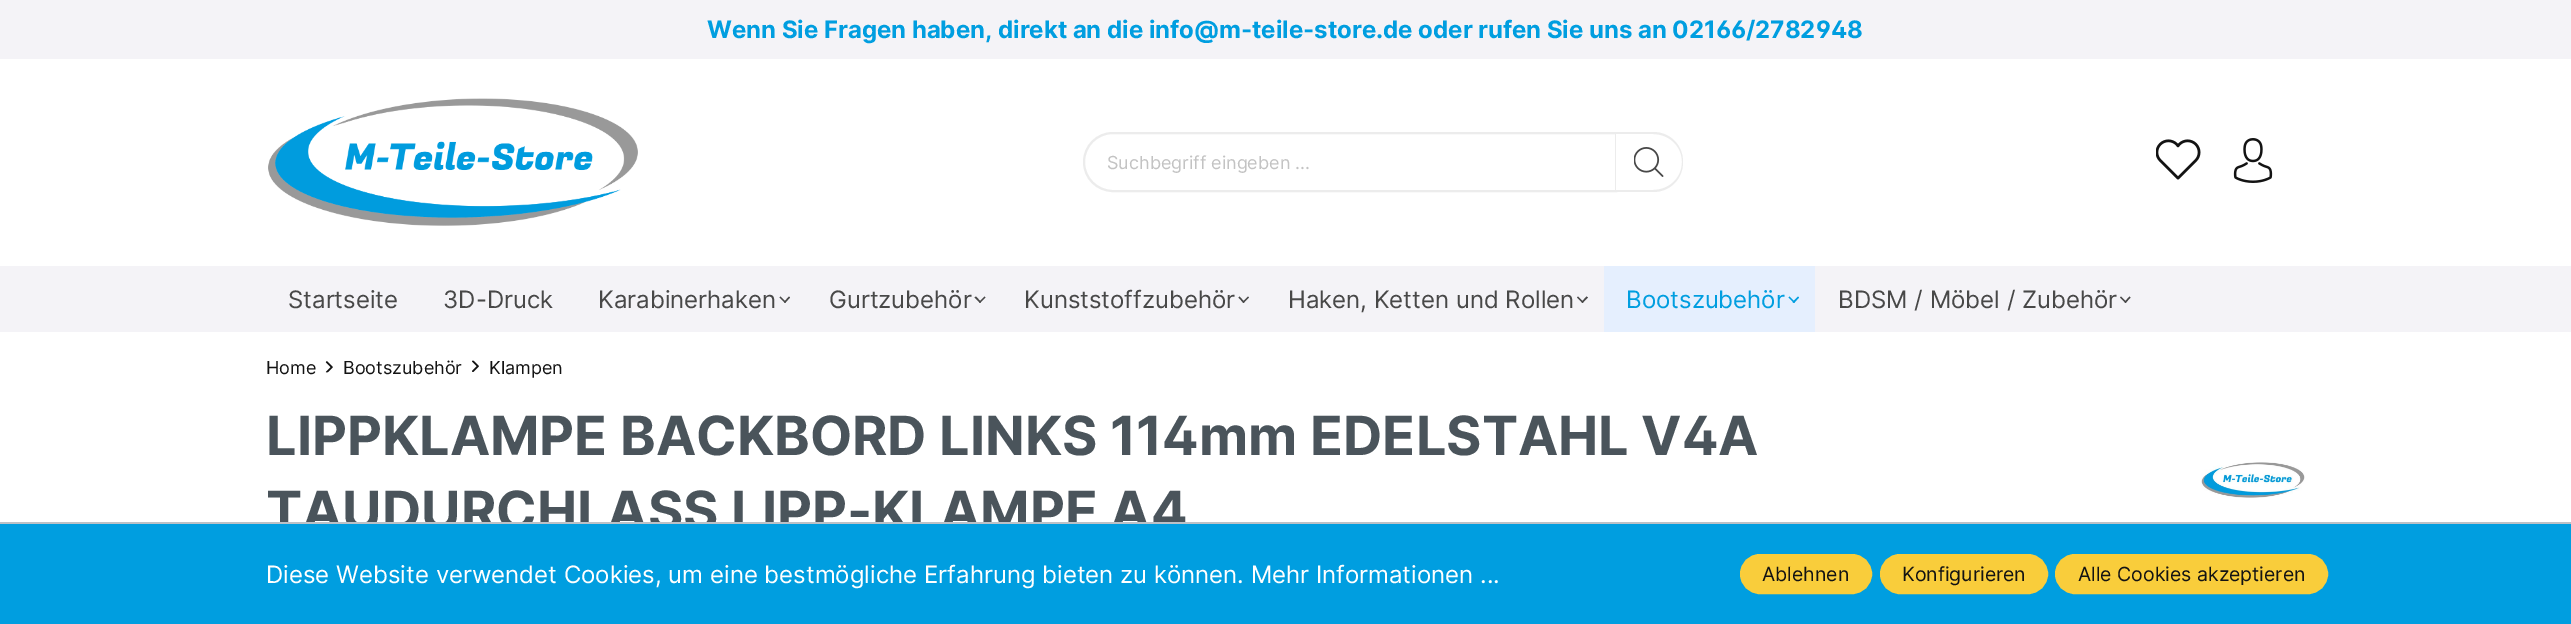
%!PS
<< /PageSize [2571 624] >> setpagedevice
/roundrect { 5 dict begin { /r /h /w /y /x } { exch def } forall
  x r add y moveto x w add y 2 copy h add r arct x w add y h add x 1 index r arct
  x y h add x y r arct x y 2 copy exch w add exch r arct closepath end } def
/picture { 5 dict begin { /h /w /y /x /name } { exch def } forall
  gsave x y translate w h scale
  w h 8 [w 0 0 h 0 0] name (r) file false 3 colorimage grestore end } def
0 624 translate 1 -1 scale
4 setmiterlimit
1 setgray
0 0 2571 624 rectfill
0.957 0.953 0.969 setrgbcolor
0 0 2571 59 rectfill
/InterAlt-Bold [24 0 0 -24 0 0] selectfont
0 0.62 0.878 setrgbcolor
707 38 moveto (Wenn Sie Fragen haben, direkt an die info@m-teile-store.de oder rufen Sie uns an 02166/2782948) show
(img1.rgb) 268 98 370 128 picture
0.925 setgray
2 setlinewidth
newpath 1113 133 moveto 1616 133 lineto 1616 191 lineto 1113 191 lineto 1097 191 1084 178 1084 162 curveto 1084 146 1097 133 1113 133 curveto closepath stroke
/Inter-Regular [18 0 0 -18 0 0] selectfont
0.765 setgray
1107 169 moveto (Suchbegriff eingeben ...) show
1 setgray
newpath 1616 132 moveto 1653 132 lineto 1669.5 132 1683 145.5 1683 162 curveto 1683 178.5 1669.5 192 1653 192 curveto 1616 192 lineto closepath fill
0.925 setgray
newpath 1616 132 moveto 1653 132 lineto 1670 132 1683 145 1683 162 curveto 1683 179 1670 192 1653 192 curveto 1616 192 lineto closepath 1616 134 moveto 1653 134 lineto 1669 134 1682 146 1682 162 curveto 1682 178 1669 190 1653 190 curveto 1616 190 lineto closepath eofill
(img2.rgb) 1634 147 30 30 picture
(img3.rgb) 2156 139 45 41 picture
(img4.rgb) 2233 138 40 45 picture
0.957 0.953 0.969 setrgbcolor
0 266 2571 66 rectfill
/Inter-Regular [24 0 0 -24 0 0] selectfont
0.282 setgray
288 308 moveto (Startseite) show
443 308 moveto (3D-Druck) show
598 308 moveto (Karabinerhaken) show
newpath 789 296.5 moveto 790 297.5 lineto 785 303 lineto 784 302 lineto closepath fill
newpath 780.5 296.5 moveto 786 302 lineto 785 303 lineto 779.5 297.5 lineto closepath fill
829 308 moveto (Gurtzubehör) show
newpath 984.5 296.5 moveto 985.5 297.5 lineto 980 303 lineto 979 302 lineto closepath fill
newpath 976 296.5 moveto 981 302 lineto 980 303 lineto 974.5 297.5 lineto closepath fill
1024 308 moveto (Kunststoffzubehör) show
newpath 1248 296.5 moveto 1249 297.5 lineto 1243.5 303 lineto 1242.5 302 lineto closepath fill
newpath 1239.5 296.5 moveto 1244.5 302 lineto 1243.5 303 lineto 1238.5 297.5 lineto closepath fill
1288 308 moveto (Haken, Ketten und Rollen) show
newpath 1586.5 296.5 moveto 1588 297.5 lineto 1582.5 303 lineto 1581.5 302 lineto closepath fill
newpath 1578 296.5 moveto 1583.5 302 lineto 1582.5 303 lineto 1577 297.5 lineto closepath fill
0.898 0.937 0.996 setrgbcolor
1604 266 211 66 rectfill
0 0.62 0.878 setrgbcolor
1626 308 moveto (Bootszubehör) show
newpath 1798 296.5 moveto 1799 297.5 lineto 1794 303 lineto 1792.5 302 lineto closepath fill
newpath 1789.5 296.5 moveto 1795 302 lineto 1794 303 lineto 1788.5 297.5 lineto closepath fill
0.282 setgray
1838 308 moveto (BDSM / Möbel / Zubehör) show
newpath 2129.5 296.5 moveto 2130.5 297.5 lineto 2125.5 303 lineto 2124.5 302 lineto closepath fill
newpath 2121 296.5 moveto 2126.5 302 lineto 2125.5 303 lineto 2120 297.5 lineto closepath fill
/Inter-Regular [18 0 0 -18 0 0] selectfont
0.075 setgray
266 374 moveto (Home) show
(img5.rgb) 325 361 8 12 picture
343 374 moveto (Bootszubehör) show
(img6.rgb) 472 360 7 12 picture
489 374 moveto (Klampen) show
/InterAlt-Bold [54 0 0 -54 0 0] selectfont
0.29 0.329 0.357 setrgbcolor
266 455 moveto (LIPPKLAMPE BACKBORD LINKS 114mm EDELSTAHL V4A) show
/Inter-Bold [54 0 0 -54 0 0] selectfont
266 530 moveto (TAUDURCHLASS LIPP-KLAMPE A4) show
(img7.rgb) 2201 462 104 36 picture
0 0.62 0.878 setrgbcolor
0 524 2571 100 rectfill
0.737 0.757 0.78 setrgbcolor
0 522 2571 2 rectfill
/Inter-Regular [24 0 0 -24 0 0] selectfont
1 setgray
266 583 moveto (Diese Website verwendet Cookies, um eine bestmögliche Erfahrung bieten zu können. Mehr Informationen ...) show
0.976 0.804 0.231 setrgbcolor
1741 555 130 38 19 roundrect gsave fill grestore
stroke
/Inter-Regular [19.5 0 0 -19.5 0 0] selectfont
0.075 setgray
1762 581 moveto (Ablehnen) show
0.976 0.804 0.231 setrgbcolor
1881 555 166 38 19 roundrect gsave fill grestore
stroke
0.075 setgray
1902 581 moveto (Konfigurieren) show
0.976 0.804 0.231 setrgbcolor
2056 555 271 38 19 roundrect gsave fill grestore
stroke
0.075 setgray
2078 581 moveto (Alle Cookies akzeptieren) show
showpage
